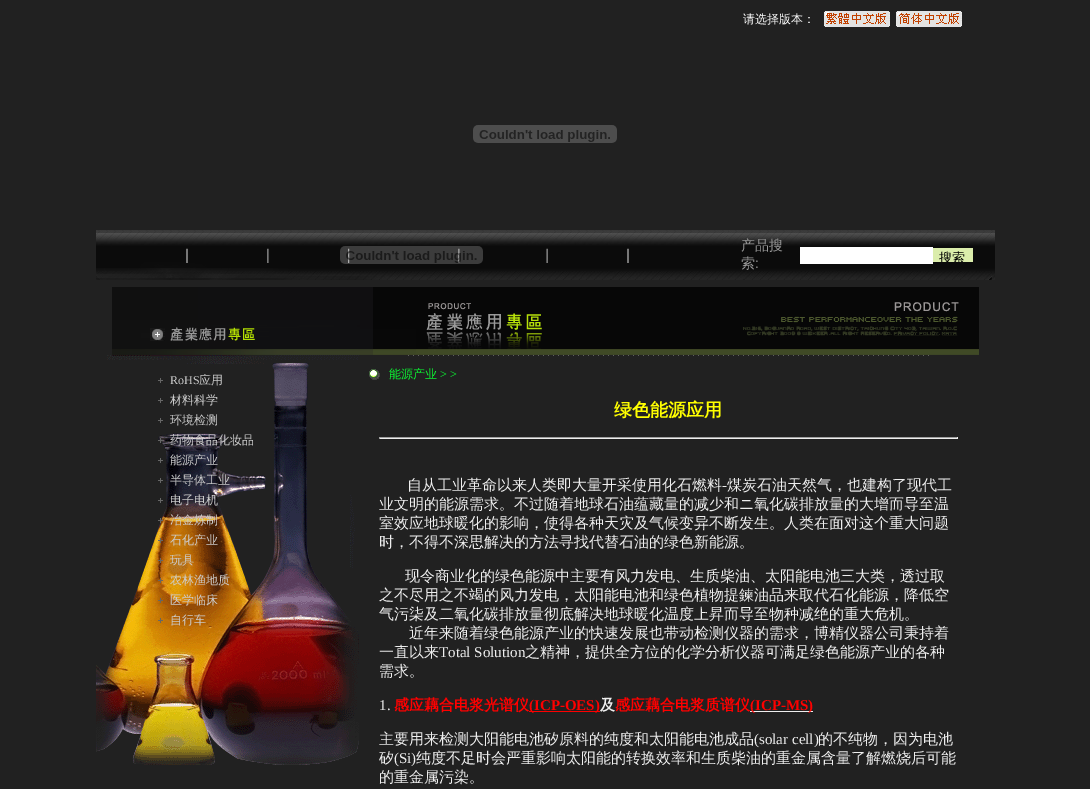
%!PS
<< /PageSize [1090 789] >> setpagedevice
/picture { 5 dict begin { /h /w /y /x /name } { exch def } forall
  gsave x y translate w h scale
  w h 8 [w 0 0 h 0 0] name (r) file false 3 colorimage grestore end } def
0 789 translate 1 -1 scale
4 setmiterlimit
0.129 setgray
0 0 1090 789 rectfill
/WenQuanYiZenHei-Medium [12 0 0 -12 0 0] selectfont
1 setgray
743 23 moveto (请选择版本：) show
(img1.rgb) 824 11 66 16 picture
(img2.rgb) 896 11 66 16 picture
(img3.rgb) 473 125 144 18 picture
(img4.rgb) 96 230 632 50 picture
(img5.rgb) 340 246 143 18 picture
(img6.rgb) 728 230 267 50 picture
/WenQuanYiZenHei-Medium [14 0 0 -14 0 0] selectfont
0.6 setgray
741 250 moveto (产品搜) show
741 268 moveto (索) show
/LiberationSans-Regular [14 0 0 -14 0 0] selectfont
755 268 moveto (:) show
1 setgray
800 247 133 17 rectfill
0.859 0.929 0.671 setrgbcolor
933 248 40 14 rectfill
gsave
933 248 40 14 rectclip
/WenQuanYiZenHei-Medium [13 0 0 -13 0 0] selectfont
0 setgray
939 262 moveto (搜索) show
grestore
(img7.rgb) 112 287 247 68 picture
(img8.rgb) 359 287 620 68 picture
(img9.rgb) 96 355 263 410 picture
(img10.rgb) 158 378 5 5 picture
/LiberationSerif-Regular [12 0 0 -12 0 0] selectfont
0.8 setgray
170 384 moveto (RoHS) show
/WenQuanYiZenHei-Medium [12 0 0 -12 0 0] selectfont
199 384 moveto (应用) show
(img10.rgb) 158 398 5 5 picture
170 404 moveto (材料科学) show
(img10.rgb) 158 418 5 5 picture
170 424 moveto (环境检测) show
(img11.rgb) 158 438 5 5 picture
170 444 moveto (药物食品化妆品) show
(img10.rgb) 158 458 5 5 picture
170 464 moveto (能源产业) show
(img10.rgb) 158 478 5 5 picture
170 484 moveto (半导体工业) show
(img10.rgb) 158 498 5 5 picture
170 504 moveto (电子电机) show
(img12.rgb) 158 518 5 5 picture
170 524 moveto (冶金炼制) show
(img13.rgb) 158 538 5 5 picture
170 544 moveto (石化产业) show
(img14.rgb) 158 558 5 5 picture
170 564 moveto (玩具) show
(img15.rgb) 158 578 5 5 picture
170 584 moveto (农林渔地质) show
(img16.rgb) 158 598 5 5 picture
170 604 moveto (医学临床) show
(img17.rgb) 158 618 5 5 picture
170 624 moveto (自行车) show
(img18.rgb) 408 355 521 1 picture
(img19.rgb) 369 369 11 11 picture
0.047 0.976 0.2 setrgbcolor
389 378 moveto (能源产业) show
/LiberationSerif-Regular [12 0 0 -12 0 0] selectfont
440 378 moveto (> >) show
/WenQuanYiZenHei-Bold [18 0 0 -18 0 0] selectfont
1 1 0 setrgbcolor
614 416 moveto (绿色能源应用) show
0.624 setgray
379 437 579 1 rectfill
0.933 setgray
957 437 1 2 rectfill
379 438 579 1 rectfill
0.624 setgray
379 437 1 2 rectfill
/WenQuanYiZenHei-Medium [15 0 0 -15 0 0] selectfont
0.933 setgray
407 490 moveto (自从工业革命以来人类即大量开采使用化石燃料) show
/LiberationSerif-Regular [15 0 0 -15 0 0] selectfont
722 490 moveto (-) show
/WenQuanYiZenHei-Medium [15 0 0 -15 0 0] selectfont
727 490 moveto (煤炭石油天然气，也建构了现代工) show
379 509 moveto (业文明的能源需求。不过随着地球石油蕴藏量的减少和ニ氧化碳排放量的大增而导至温) show
379 528 moveto (室效应地球暖化的影响，使得各种天灾及气候变异不断发生。人类在面对这个重大问题) show
379 547 moveto (时，不得不深思解决的方法寻找代替石油的绿色新能源。) show
405 581 moveto (现令商业化的绿色能源中主要有风力发电、生质柴油、太阳能电池三大类，透过取) show
379 600 moveto (之不尽用之不竭的风力发电，太阳能电池和绿色植物提鍊油品来取代石化能源，降低空) show
379 619 moveto (气污柒及二氧化碳排放量彻底解决地球暖化温度上昇而导至物种减绝的重大危机。) show
409 638 moveto (近年来随着绿色能源产业的快速发展也带动检测仪器的需求，博精仪器公司秉持着) show
379 657 moveto (一直以来) show
/LiberationSerif-Regular [15 0 0 -15 0 0] selectfont
439 657 moveto (Total Solution) show
/WenQuanYiZenHei-Medium [15 0 0 -15 0 0] selectfont
525 657 moveto (之精神，提供全方位的化学分析仪器可满足绿色能源产业的各种) show
379 676 moveto (需求。) show
/LiberationSerif-Regular [15 0 0 -15 0 0] selectfont
379 710 moveto (1.) show
/WenQuanYiZenHei-Bold [15 0 0 -15 0 0] selectfont
1 0 0 setrgbcolor
394 710 moveto (感应藕合电浆光谱仪) show
529 711 71 1 rectfill
/LiberationSerif-Bold [15 0 0 -15 0 0] selectfont
529 710 moveto (\(ICP-OES\)) show
/WenQuanYiZenHei-Bold [15 0 0 -15 0 0] selectfont
0.933 setgray
600 710 moveto (及) show
1 0 0 setrgbcolor
615 710 moveto (感应藕合电浆质谱仪) show
0.933 setgray
750 711 63 1 rectfill
/LiberationSerif-Bold [15 0 0 -15 0 0] selectfont
1 0 0 setrgbcolor
750 710 moveto (\(ICP-MS\)) show
/WenQuanYiZenHei-Medium [15 0 0 -15 0 0] selectfont
0.933 setgray
379 744 moveto (主要用来检测大阳能电池矽原料的纯度和太阳能电池成品) show
/LiberationSerif-Regular [15 0 0 -15 0 0] selectfont
754 744 moveto (\(solar cell\)) show
/WenQuanYiZenHei-Medium [15 0 0 -15 0 0] selectfont
818 744 moveto (的不纯物，因为电池) show
379 763 moveto (矽) show
/LiberationSerif-Regular [15 0 0 -15 0 0] selectfont
394 763 moveto (\(Si\)) show
/WenQuanYiZenHei-Medium [15 0 0 -15 0 0] selectfont
416 763 moveto (纯度不足时会严重影响太阳能的转换效率和生质柴油的重金属含量了解燃烧后可能) show
379 782 moveto (的重金属污染。) show
showpage
